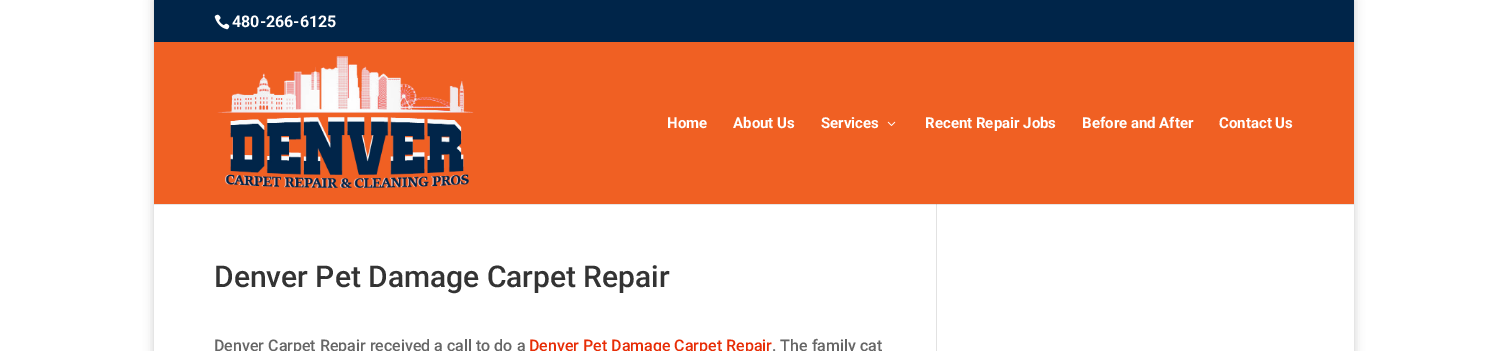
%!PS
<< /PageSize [1507 351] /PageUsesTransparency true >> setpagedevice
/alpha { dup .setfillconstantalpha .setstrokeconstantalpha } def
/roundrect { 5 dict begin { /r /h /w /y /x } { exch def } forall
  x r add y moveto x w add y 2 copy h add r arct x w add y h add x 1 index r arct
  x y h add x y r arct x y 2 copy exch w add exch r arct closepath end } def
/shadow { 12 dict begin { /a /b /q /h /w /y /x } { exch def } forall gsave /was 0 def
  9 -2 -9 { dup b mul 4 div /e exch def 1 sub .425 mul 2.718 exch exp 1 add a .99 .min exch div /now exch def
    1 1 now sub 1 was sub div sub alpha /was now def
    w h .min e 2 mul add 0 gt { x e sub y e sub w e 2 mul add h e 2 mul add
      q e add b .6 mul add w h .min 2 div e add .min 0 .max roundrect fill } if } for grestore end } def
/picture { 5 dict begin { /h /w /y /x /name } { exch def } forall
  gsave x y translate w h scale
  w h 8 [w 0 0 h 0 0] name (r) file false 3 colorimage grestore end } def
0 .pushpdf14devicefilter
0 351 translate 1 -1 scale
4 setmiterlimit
1 setgray
0 0 1507 351 rectfill
0.902 setgray
154 204 1200 1 rectfill
gsave
newpath 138 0 moveto 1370 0 lineto 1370 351 lineto 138 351 lineto closepath 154 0 moveto 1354 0 lineto 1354 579 lineto 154 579 lineto closepath eoclip newpath
0 setgray
154 0 1200 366 0 5 0.2 shadow
grestore
0 0.145 0.286 setrgbcolor
154 0 1200 42 rectfill
(img1.rgb) 214 14 16 16 picture
/Roboto-Bold [16 0 0 -16 0 0] selectfont
1 setgray
232 27 moveto (480-266-6125) show
0.941 0.376 0.137 setrgbcolor
154 42 1200 162 rectfill
(img2.rgb) 217 56 257 132 picture
/Roboto-Bold [15 0 0 -15 0 0] selectfont
1 setgray
667 128 moveto (Home) show
733 128 moveto (About Us) show
821 128 moveto (Services) show
(img3.rgb) 887 121 9 5 picture
925 128 moveto (Recent Repair Jobs) show
1082 128 moveto (Before and After) show
1219 128 moveto (Contact Us) show
/Roboto-Medium [30 0 0 -30 0 0] selectfont
0.2 setgray
214 287 moveto (Denver Pet Damage Carpet Repair) show
/Roboto-Medium [16 0 0 -16 0 0] selectfont
0.4 setgray
214 351 moveto (Denver Carpet Repair received a call to do a) show
0.906 0.176 0.024 setrgbcolor
529 351 moveto (Denver Pet Damage Carpet Repair) show
0.4 setgray
772 351 moveto (. The family cat) show
0.886 setgray
936 204 1 147 rectfill
0.796 setgray
936 204 1 1 rectfill
.poppdf14devicefilter showpage
